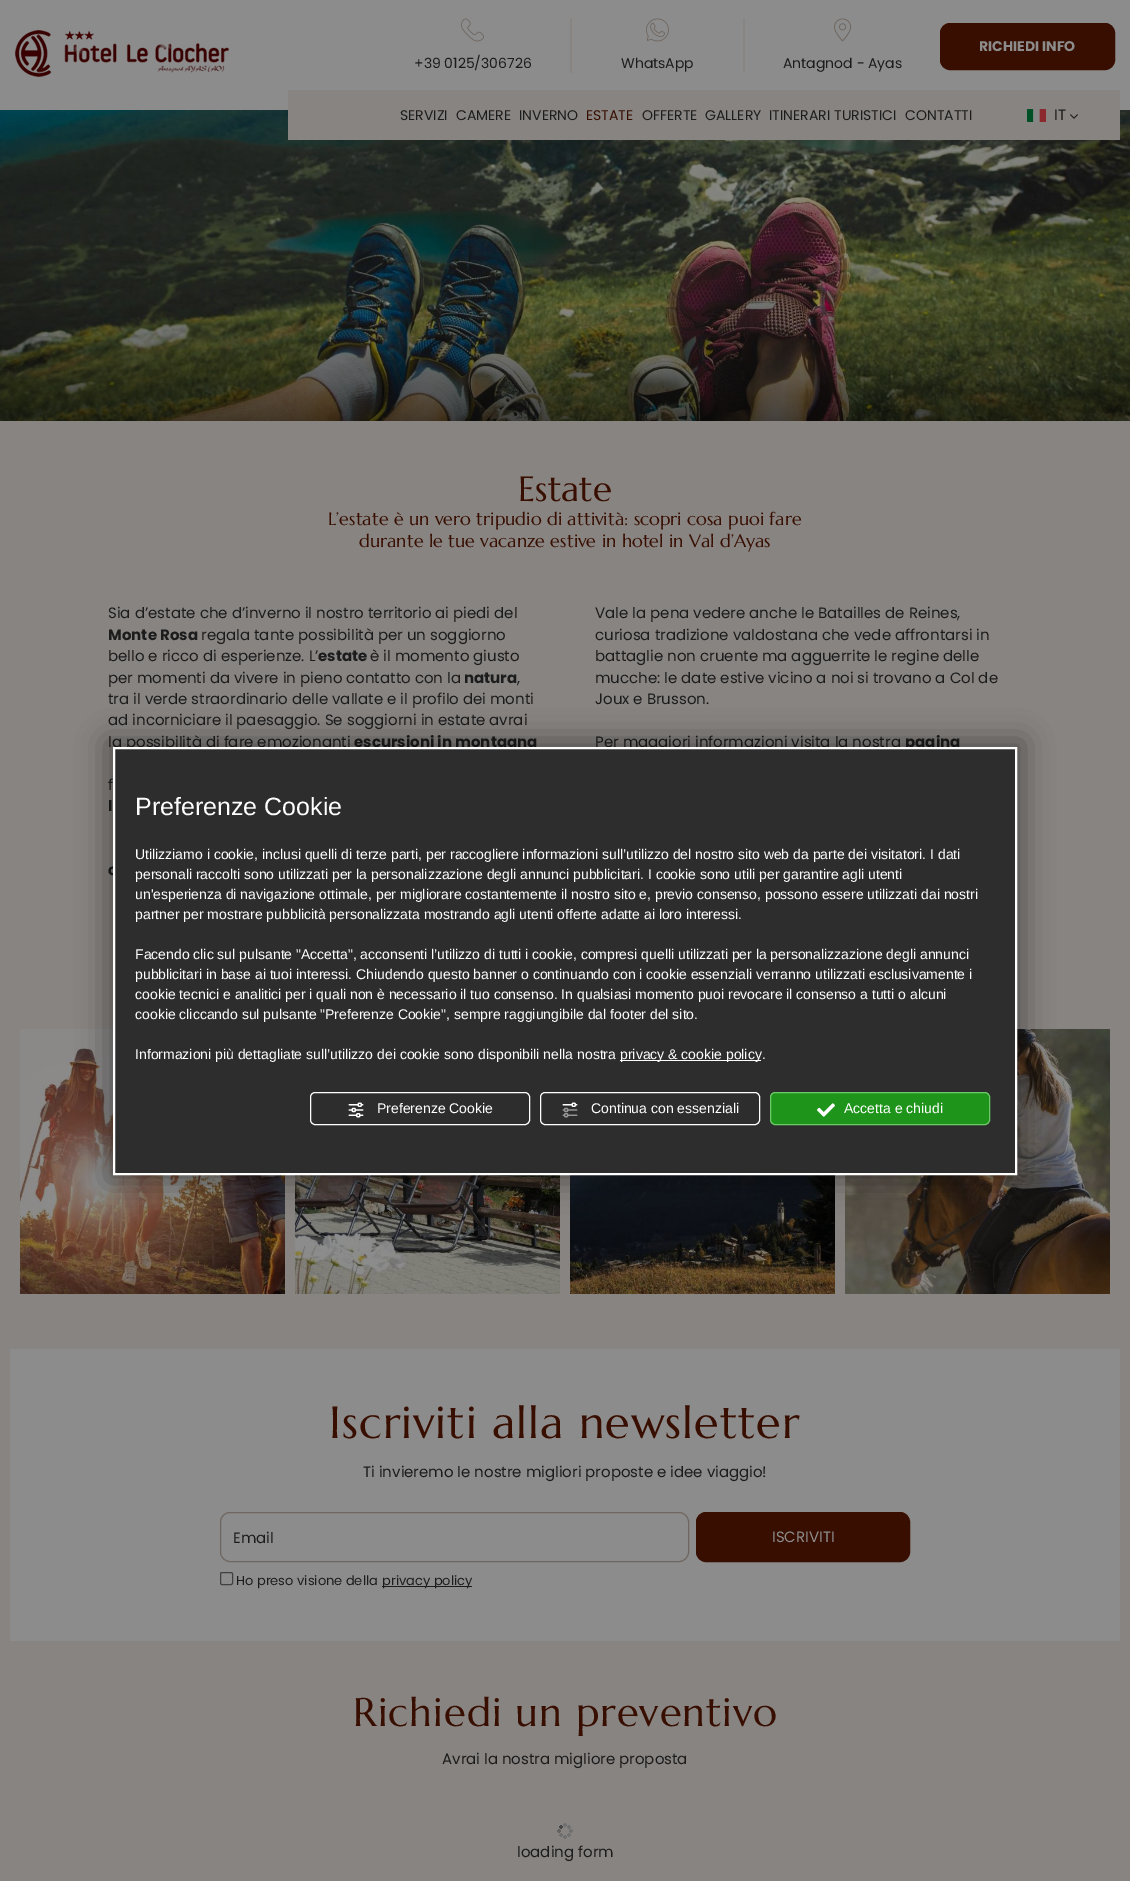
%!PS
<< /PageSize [1130 1881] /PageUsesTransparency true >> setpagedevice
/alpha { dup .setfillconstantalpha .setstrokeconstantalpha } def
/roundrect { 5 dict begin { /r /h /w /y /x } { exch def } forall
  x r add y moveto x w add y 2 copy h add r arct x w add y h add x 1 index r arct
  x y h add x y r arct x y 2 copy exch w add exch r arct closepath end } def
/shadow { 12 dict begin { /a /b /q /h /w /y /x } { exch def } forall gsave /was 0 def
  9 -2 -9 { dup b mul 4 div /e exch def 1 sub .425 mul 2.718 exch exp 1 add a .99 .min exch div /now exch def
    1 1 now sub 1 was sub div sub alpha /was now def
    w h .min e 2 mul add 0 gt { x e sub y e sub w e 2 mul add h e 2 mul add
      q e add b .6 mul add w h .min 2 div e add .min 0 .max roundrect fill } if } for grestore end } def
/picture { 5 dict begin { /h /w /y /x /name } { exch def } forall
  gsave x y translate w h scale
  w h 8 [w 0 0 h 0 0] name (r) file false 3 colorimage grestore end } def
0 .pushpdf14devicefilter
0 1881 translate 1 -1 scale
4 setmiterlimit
0.529 0.518 0.51 setrgbcolor
0 0 1130 1881 rectfill
0.549 setgray
0 0 1130 110 rectfill
(img1.rgb) 15 30 214 47 picture
0.22 0.055 0 setrgbcolor
940.5 23.5 174 46 9.5 roundrect gsave fill grestore
stroke
/Poppins-Bold [14 0 0 -14 0 0] selectfont
0.549 setgray
979 51 moveto (RICHIEDI INFO) show
(img2.rgb) 461 18 23 24 picture
/Poppins-Regular [14 0 0 -14 0 0] selectfont
0.11 setgray
414 68 moveto (+39 0125/306726) show
0.529 0.518 0.51 setrgbcolor
743 18 2 55 rectfill
570 18 2 55 rectfill
(img3.rgb) 646 18 23 24 picture
0.11 setgray
621 68 moveto (WhatsApp) show
(img4.rgb) 834 18 18 24 picture
783 68 moveto (Antagnod - Ayas) show
(img7.rgb) 0 110 1130 311 picture
0.529 0.518 0.51 setrgbcolor
288 90 832 50 rectfill
0.11 setgray
400 120 moveto (SERVIZI) show
456 120 moveto (CAMERE) show
519 120 moveto (INVERNO) show
0.22 0.055 0 setrgbcolor
586 120 moveto (ESTATE) show
0.11 setgray
642 120 moveto (OFFERTE) show
705 120 moveto (GALLERY) show
769 120 moveto (ITINERARI TURISTICI) show
905 120 moveto (CONTATTI) show
(img5.rgb) 1027 109 19 13 picture
/Poppins-Regular [15 0 0 -15 0 0] selectfont
1054 120 moveto (IT) show
(img6.rgb) 1070 114 8 5 picture
(img8.rgb) 0 306 1130 115 picture
/Marcellus-Regular [35 0 0 -35 0 0] selectfont
0.22 0.055 0 setrgbcolor
518 501 moveto (Estate) show
/Marcellus-Regular [18 0 0 -18 0 0] selectfont
328 525 moveto (L’estate è un vero tripudio di attività: scopri cosa puoi fare) show
359 547 moveto (durante le tue vacanze estive in hotel in Val d’Ayas) show
/Poppins-Regular [15 0 0 -15 0 0] selectfont
0.11 setgray
108 618 moveto (Sia d’estate che d’inverno il nostro territorio ai piedi del) show
/Poppins-Bold [15 0 0 -15 0 0] selectfont
108 640 moveto (Monte Rosa) show
/Poppins-Regular [15 0 0 -15 0 0] selectfont
201 640 moveto (regala tante possibilità per un soggiorno) show
108 661 moveto (bello e ricco di esperienze. L’) show
/Poppins-Bold [15 0 0 -15 0 0] selectfont
318 661 moveto (estate) show
/Poppins-Regular [15 0 0 -15 0 0] selectfont
370 661 moveto (è il momento giusto) show
108 683 moveto (per momenti da vivere in pieno contatto con la) show
/Poppins-Bold [15 0 0 -15 0 0] selectfont
464 683 moveto (natura) show
/Poppins-Regular [15 0 0 -15 0 0] selectfont
517 683 moveto (,) show
108 704 moveto (tra il verde straordinario delle vallate e il profilo dei monti) show
108 725 moveto (ad incorniciare il paesaggio. Se soggiorni in estate avrai) show
108 747 moveto (la possibilità di fare emozionanti) show
/Poppins-Bold [15 0 0 -15 0 0] selectfont
354 747 moveto (escursioni in montagna) show
/Poppins-Regular [15 0 0 -15 0 0] selectfont
108 790 moveto (f) show
/Poppins-Bold [15 0 0 -15 0 0] selectfont
108 811 moveto (l) show
108 875 moveto (c) show
/Poppins-Regular [15 0 0 -15 0 0] selectfont
595 618 moveto (Vale la pena vedere anche le Batailles de Reines,) show
595 640 moveto (curiosa tradizione valdostana che vede affrontarsi in) show
595 661 moveto (battaglie non cruente ma agguerrite le regine delle) show
595 683 moveto (mucche: le date estive vicino a noi si trovano a Col de) show
595 704 moveto (Joux e Brusson.) show
595 747 moveto (Per maggiori informazioni visita la nostra) show
/Poppins-Bold [15 0 0 -15 0 0] selectfont
905 747 moveto (pagina) show
(img9.rgb) 20 1029 265 265 picture
(img10.rgb) 295 1175 265 119 picture
(img11.rgb) 570 1175 265 119 picture
(img12.rgb) 845 1029 265 265 picture
0.549 setgray
10 1349 1110 292 rectfill
/Marcellus-Regular [45 0 0 -45 0 0] selectfont
0.22 0.055 0 setrgbcolor
329 1438 moveto 1 0 (Iscriviti alla newsletter) ashow
/Poppins-Regular [15 0 0 -15 0 0] selectfont
0.11 setgray
363 1477 moveto (Ti invieremo le nostre migliori proposte e idee viaggio!) show
0.435 0.4 0.373 setrgbcolor
220.5 1512.5 468 49 9.5 roundrect stroke
0.11 setgray
233 1543 moveto (Email) show
0.22 0.055 0 setrgbcolor
696.5 1512.5 213 49 9.5 roundrect gsave fill grestore
stroke
0.549 setgray
772 1542 moveto (ISCRIVITI) show
0.255 setgray
220.5 1572.5 12 12 1.5 roundrect stroke
/Poppins-Regular [13 0 0 -13 0 0] selectfont
0.11 setgray
236 1585 moveto (Ho preso visione della) show
382 1586 90 1 rectfill
382 1585 moveto (privacy policy) show
/Marcellus-Regular [40 0 0 -40 0 0] selectfont
0.22 0.055 0 setrgbcolor
353 1726 moveto 1 0 (Richiedi un preventivo) ashow
/Poppins-Regular [15 0 0 -15 0 0] selectfont
0.11 setgray
442 1764 moveto (Avrai la nostra migliore proposta) show
(img13.rgb) 557 1823 16 16 picture
517 1857 moveto (loading form) show
0 setgray
106 740 918 442 0 14.5 0.38 shadow
0.176 setgray
newpath 114 748 moveto 1016 748 lineto 1016 1174 lineto 114 1174 lineto closepath gsave fill grestore
1 setgray
2 setlinewidth
stroke
/LiberationSans-Regular [25 0 0 -25 0 0] selectfont
135 815 moveto (Preferenze Cookie) show
/LiberationSans-Regular [14 0 0 -14 0 0] selectfont
135 859 moveto (Utilizziamo i cookie, inclusi quelli di terze parti, per raccogliere informazioni sull’utilizzo del nostro sito web da parte dei visitatori. I dati) show
135 879 moveto (personali raccolti sono utilizzati per la personalizzazione degli annunci pubblicitari. I cookie sono utili per garantire agli utenti) show
135 899 moveto (un'esperienza di navigazione ottimale, per migliorare costantemente il nostro sito e, previo consenso, possono essere utilizzati dai nostri) show
135 919 moveto (partner per mostrare pubblicità personalizzata mostrando agli utenti offerte adatte ai loro interessi.) show
135 959 moveto (Facendo clic sul pulsante "Accetta", acconsenti l’utilizzo di tutti i cookie, compresi quelli utilizzati per la personalizzazione degli annunci) show
135 979 moveto (pubblicitari in base ai tuoi interessi. Chiudendo questo banner o continuando con i cookie essenziali verranno utilizzati esclusivamente i) show
135 999 moveto (cookie tecnici e analitici per i quali non è necessario il tuo consenso. In qualsiasi momento puoi revocare il consenso a tutti o alcuni) show
135 1019 moveto (cookie cliccando sul pulsante "Preferenze Cookie", sempre raggiungibile dal footer del sito.) show
135 1059 moveto (Informazioni più dettagliate sull’utilizzo dei cookie sono disponibili nella nostra) show
620 1060 141 1 rectfill
620 1059 moveto (privacy & cookie policy.) show
1 setlinewidth
310.5 1092.5 219 32 4.5 roundrect stroke
(img14.rgb) 348 1102 16 16 picture
377 1113 moveto (Preferenze Cookie) show
540.5 1092.5 219 32 4.5 roundrect stroke
(img15.rgb) 562 1102 16 16 picture
591 1113 moveto (Continua con essenziali) show
0.118 0.58 0.102 setrgbcolor
770.5 1092.5 219 32 4.5 roundrect gsave fill grestore
0.424 0.792 0.412 setrgbcolor
stroke
(img16.rgb) 817 1103 18 14 picture
1 setgray
844 1113 moveto (Accetta e chiudi) show
.poppdf14devicefilter showpage
